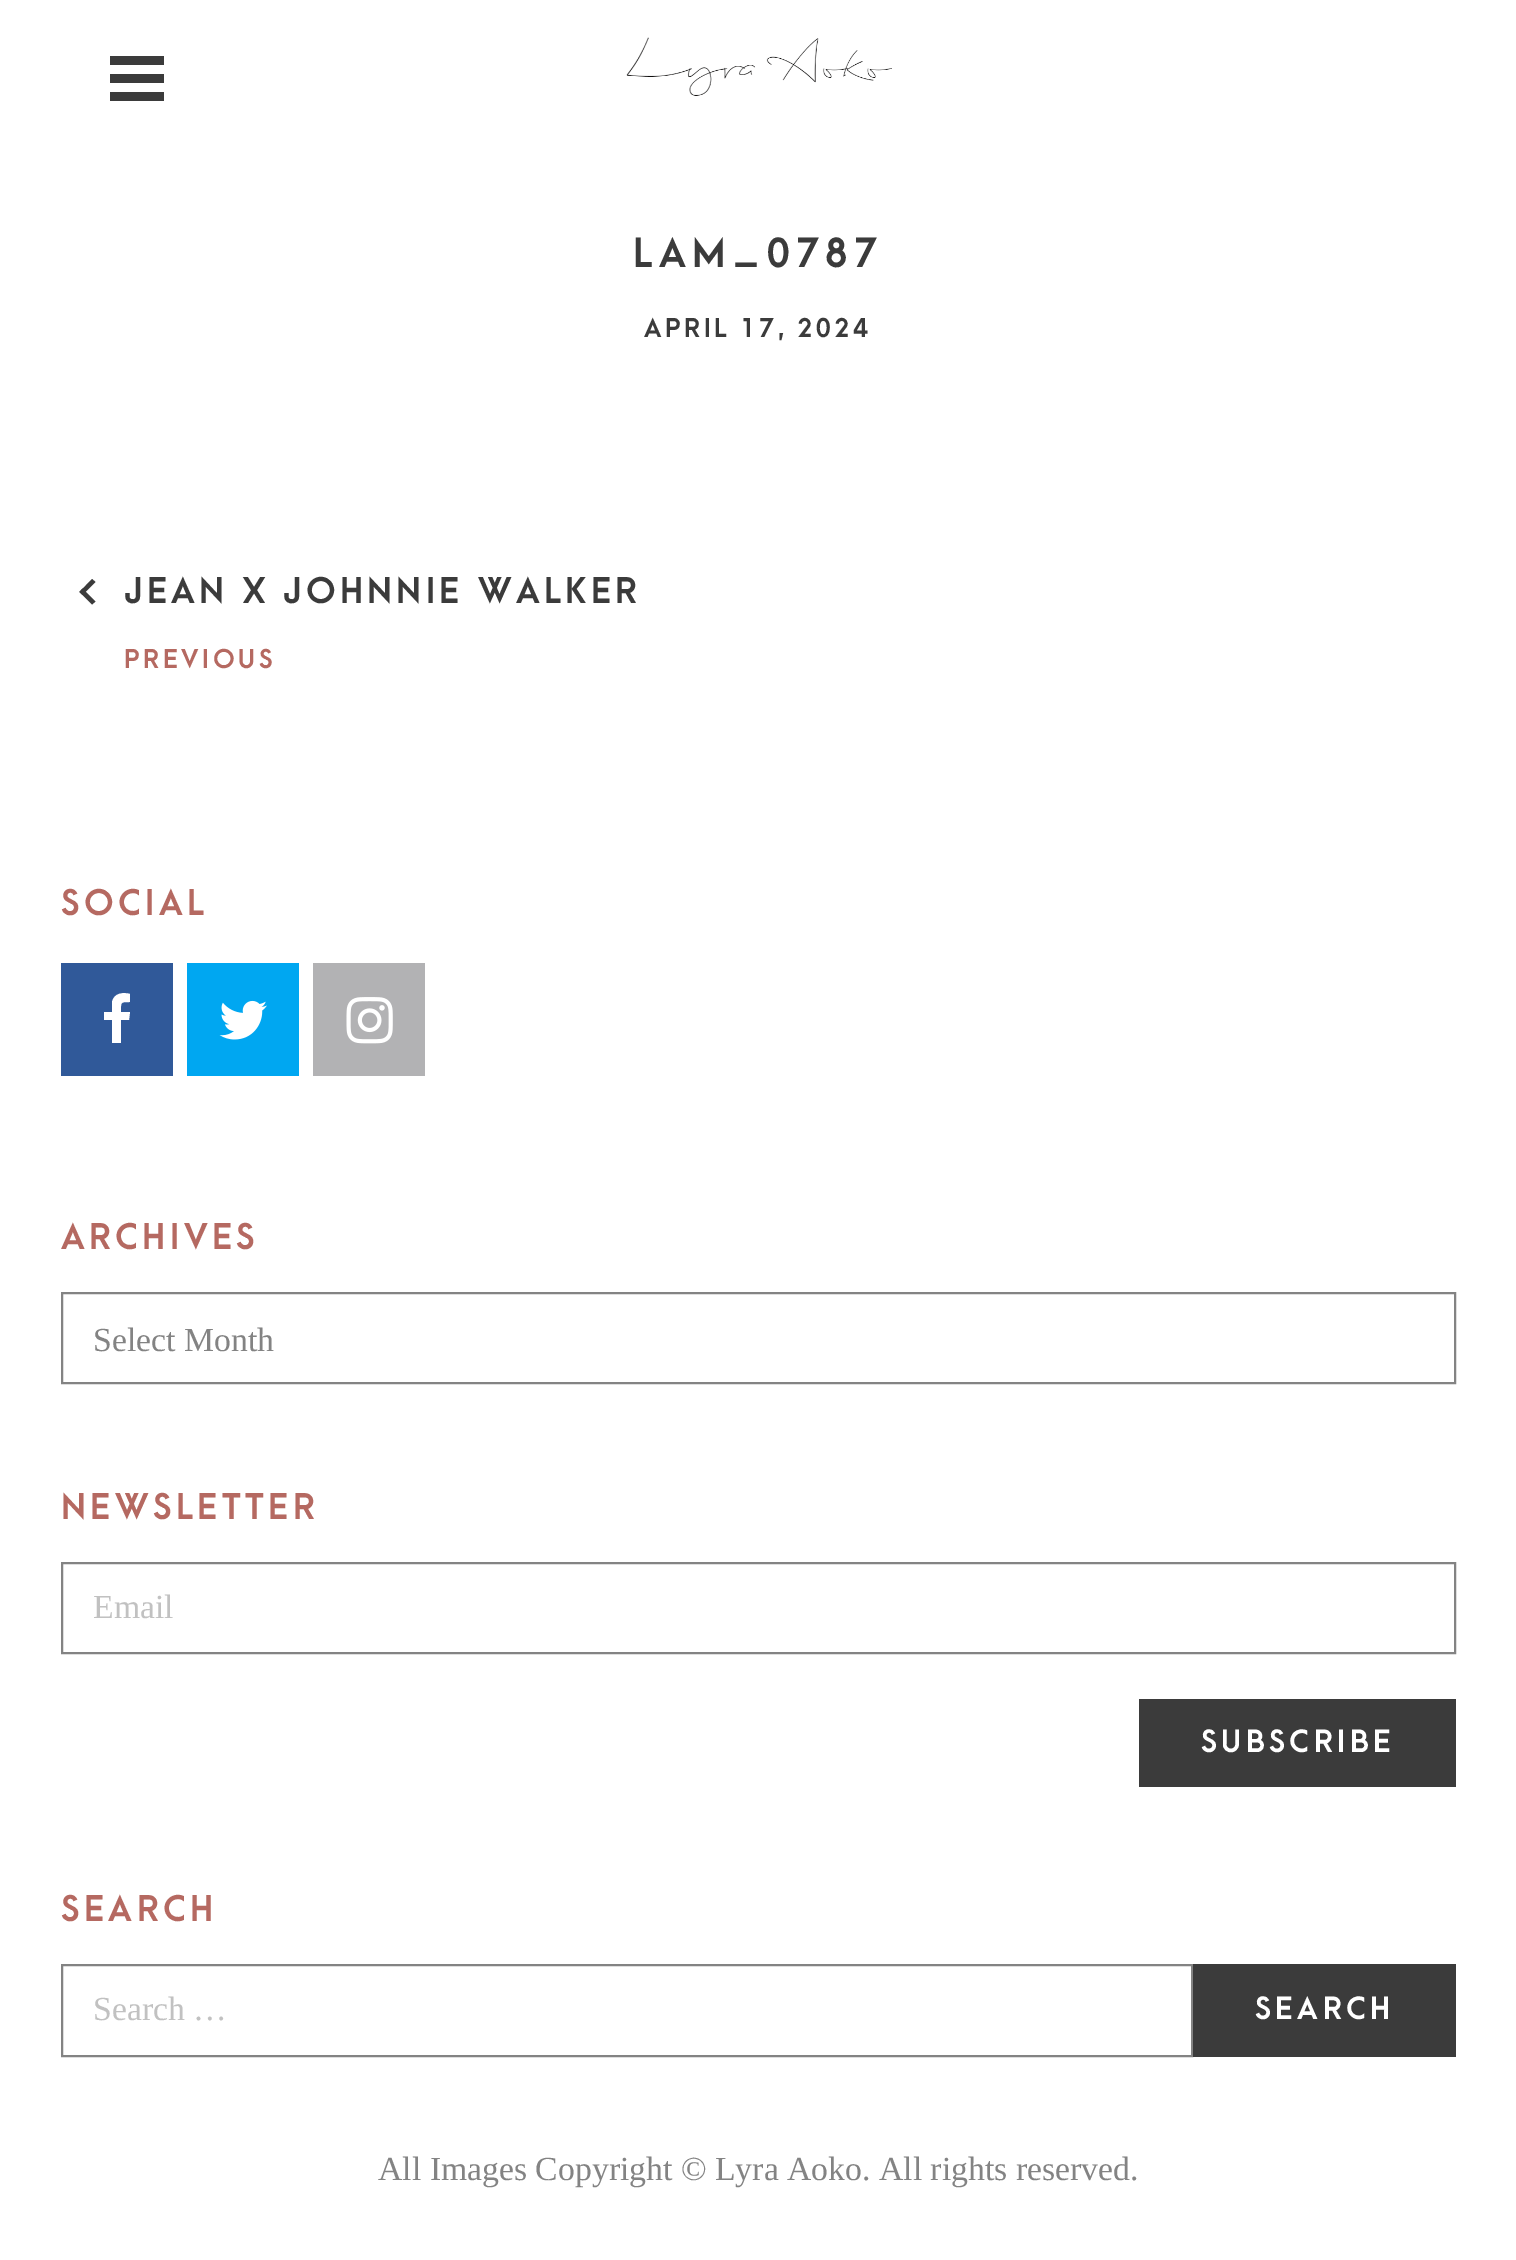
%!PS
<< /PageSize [1516 2260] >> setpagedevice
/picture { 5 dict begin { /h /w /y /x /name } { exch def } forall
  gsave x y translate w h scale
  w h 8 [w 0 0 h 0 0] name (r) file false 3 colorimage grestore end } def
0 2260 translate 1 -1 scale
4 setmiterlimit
1 setgray
0 0 1516 2260 rectfill
0.231 setgray
110 56 54 9 rectfill
110 74 54 9 rectfill
110 92 54 9 rectfill
(img1.rgb) 626 37 266 59 picture
/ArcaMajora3-Bold [38.25 0 0 -38.25 0 0] selectfont
633 267 moveto 6.5 0 (LAM_0787) ashow
/ArcaMajora3-Bold [24.75 0 0 -24.75 0 0] selectfont
644 337 moveto 3.75 0 (APRIL 17, 2024) ashow
newpath 82.5 588.5 moveto 95.5 601.5 lineto 92 604.5 lineto 79.5 592 lineto closepath fill
newpath 92 579 moveto 95.5 582 lineto 82.5 595 lineto 79.5 592 lineto closepath fill
/ArcaMajora3-Bold [33.75 0 0 -33.75 0 0] selectfont
124 603 moveto 4.4 0 (JEAN X JOHNNIE WALKER) ashow
/ArcaMajora3-Bold [24.75 0 0 -24.75 0 0] selectfont
0.71 0.412 0.38 setrgbcolor
124 668 moveto 3.75 0 (PREVIOUS) ashow
/ArcaMajora3-Bold [33.75 0 0 -33.75 0 0] selectfont
61 915 moveto 4.4 0 (SOCIAL) ashow
0.188 0.349 0.6 setrgbcolor
61 963 112 113 rectfill
1 setgray
newpath 130 994 moveto 123 992 114 993 112 1002 curveto 112 1012 lineto 104 1012 lineto 104 1020 lineto 112 1020 lineto 112 1043 lineto 121 1043 lineto 121 1020 lineto 129 1020 lineto 130 1012 lineto 121 1012 lineto 121 1002 120 1002 130 1002 curveto closepath fill
0 0.655 0.945 setrgbcolor
187 963 112 113 rectfill
(img2.rgb) 219 1000 48 40 picture
0.698 0.698 0.706 setrgbcolor
313 963 112 113 rectfill
(img3.rgb) 346 997 47 47 picture
0.71 0.412 0.38 setrgbcolor
61 1249 moveto 4.4 0 (ARCHIVES) ashow
0.514 setgray
2 setlinewidth
62 1293 1393 90 rectstroke
/LiberationSerif-Regular [33.75 0 0 -33.75 0 0] selectfont
93 1351 moveto (Select Month) show
/ArcaMajora3-Bold [33.75 0 0 -33.75 0 0] selectfont
0.71 0.412 0.38 setrgbcolor
61 1519 moveto 4.4 0 (NEWSLETTER) ashow
0.514 setgray
62 1563 1393 90 rectstroke
/LiberationSerif-Regular [33.75 0 0 -33.75 0 0] selectfont
0.757 setgray
93 1618 moveto (Email) show
0.231 setgray
1139 1699 317 88 rectfill
/ArcaMajora3-Bold [29.25 0 0 -29.25 0 0] selectfont
1 setgray
1201 1752 moveto 4.5 0 (SUBSCRIBE) ashow
/ArcaMajora3-Bold [33.75 0 0 -33.75 0 0] selectfont
0.71 0.412 0.38 setrgbcolor
61 1921 moveto 4.4 0 (SEARCH) ashow
0.514 setgray
62 1965 1130 91 rectstroke
/LiberationSerif-Regular [33.75 0 0 -33.75 0 0] selectfont
0.757 setgray
93 2020 moveto (Search …) show
0.231 setgray
1193 1964 263 93 rectfill
/ArcaMajora3-Bold [29.25 0 0 -29.25 0 0] selectfont
1 setgray
1255 2019 moveto 4.5 0 (SEARCH) ashow
/LiberationSerif-Regular [33.75 0 0 -33.75 0 0] selectfont
0.514 setgray
378 2180 moveto (All Images Copyright © Lyra Aoko. All rights reserved.) show
showpage
